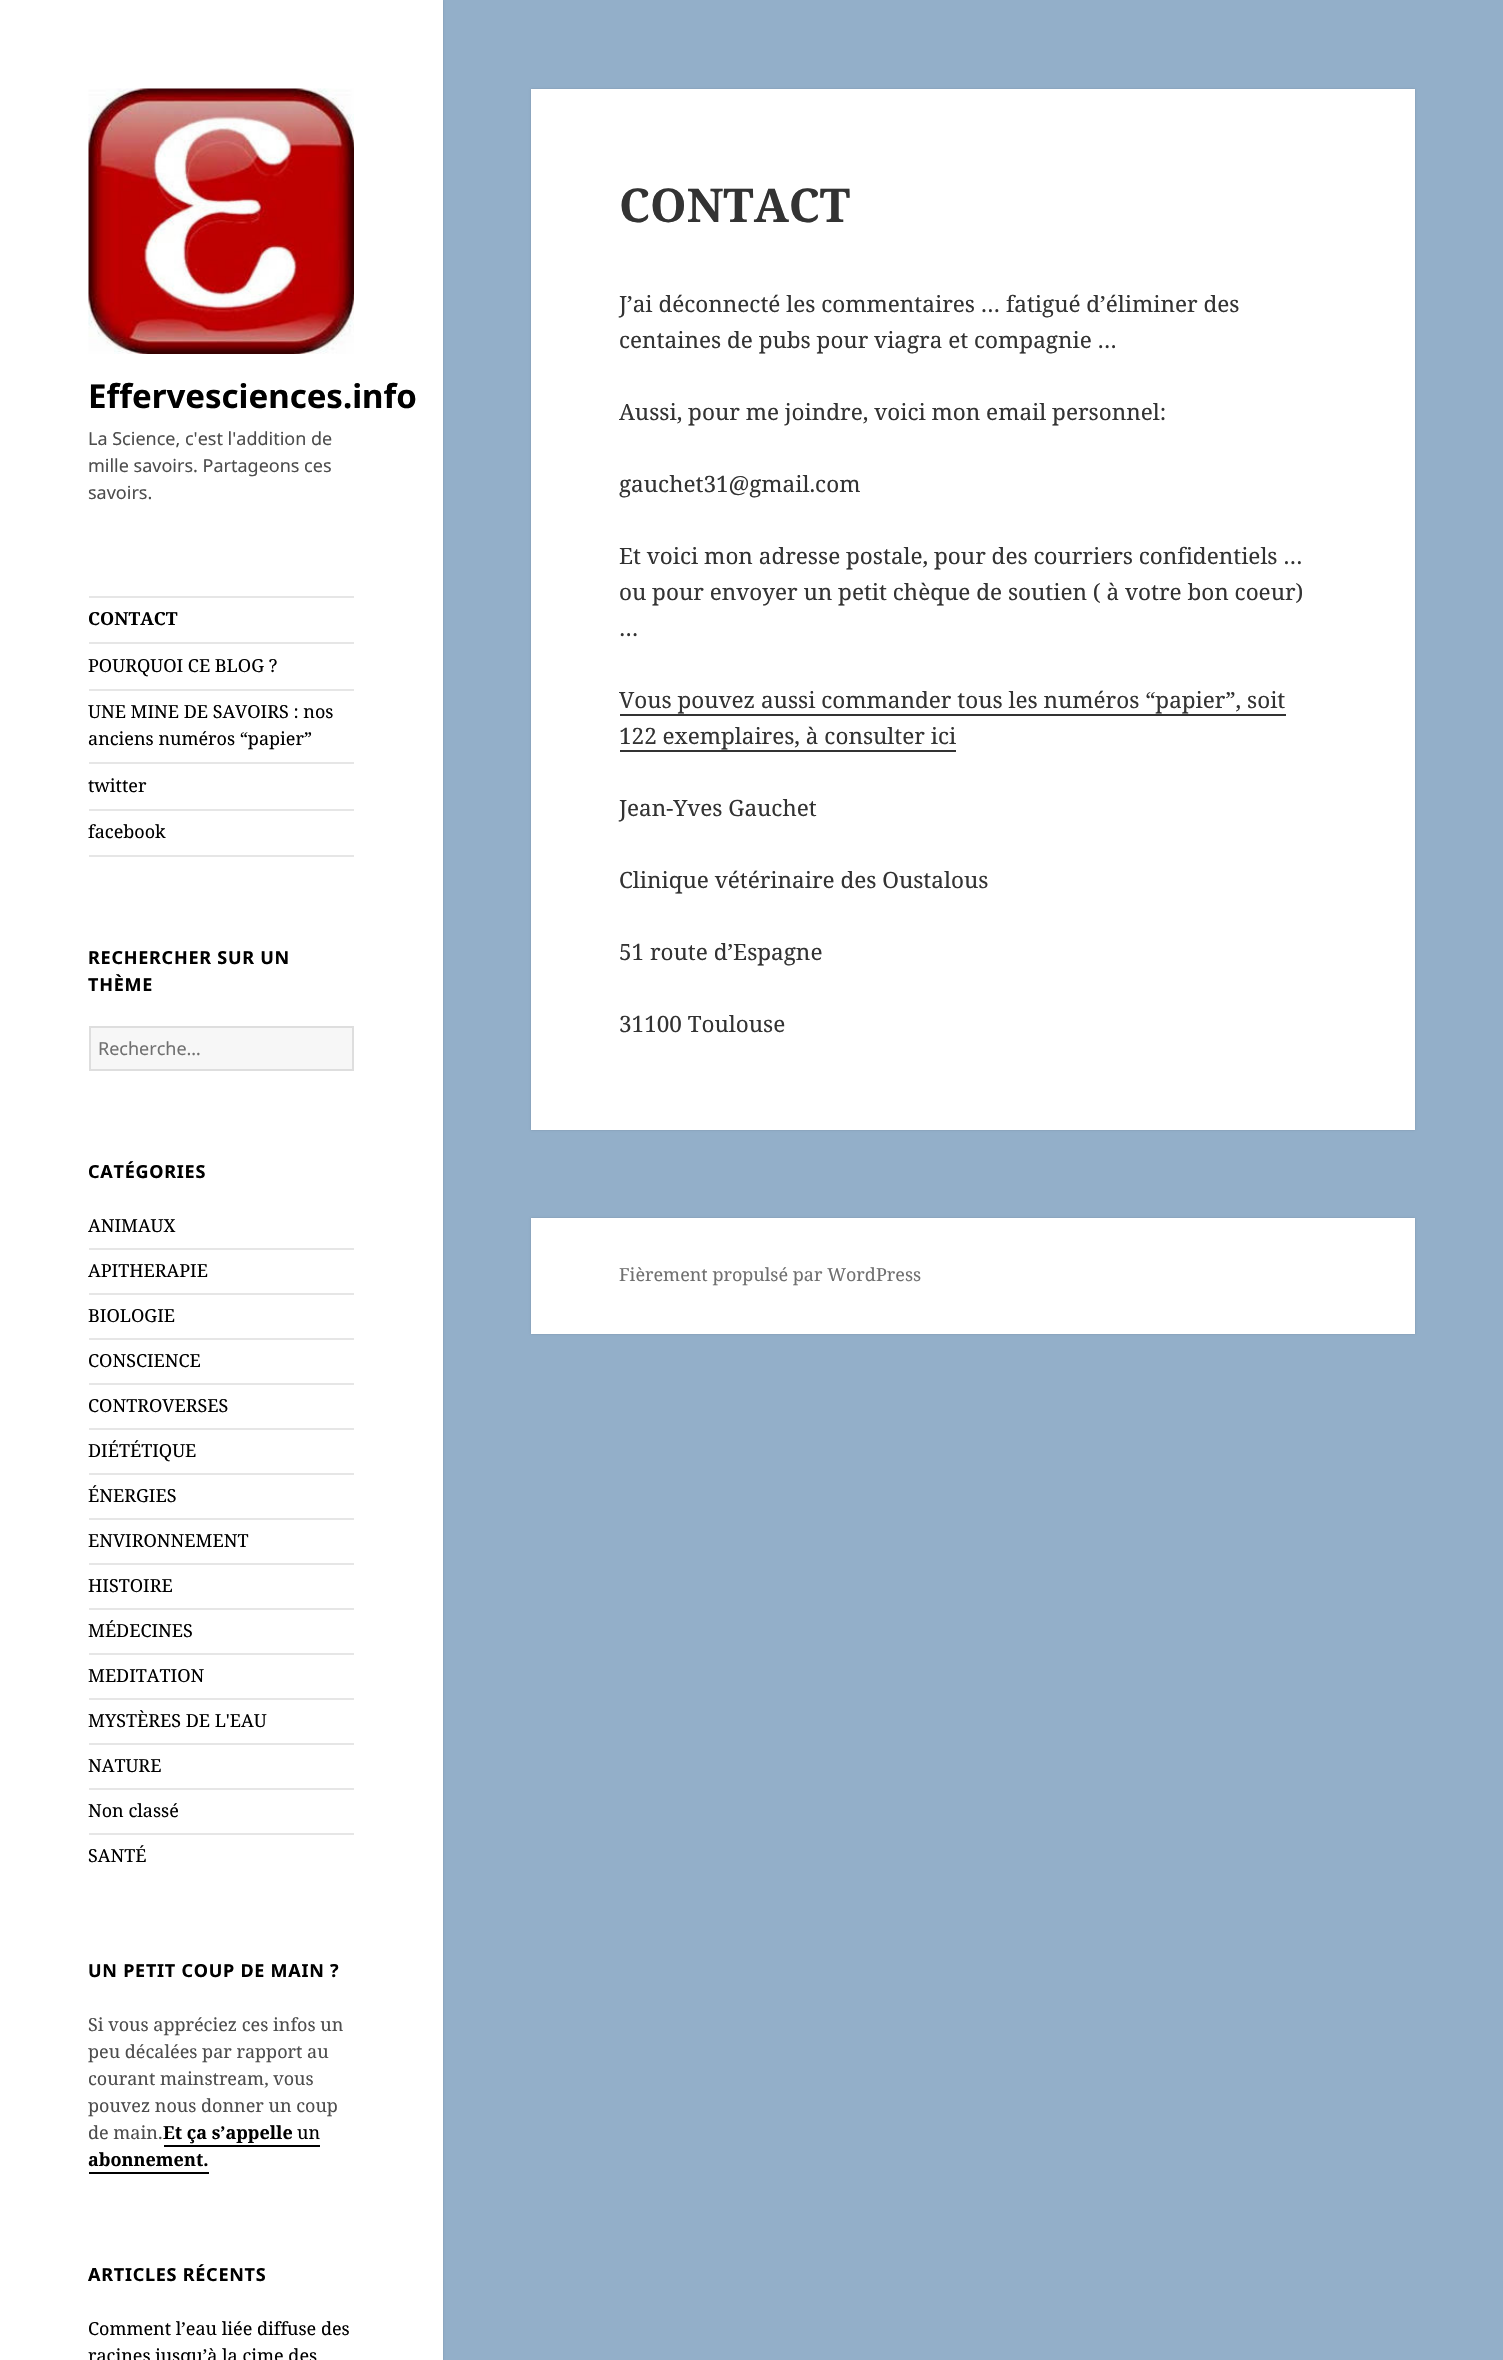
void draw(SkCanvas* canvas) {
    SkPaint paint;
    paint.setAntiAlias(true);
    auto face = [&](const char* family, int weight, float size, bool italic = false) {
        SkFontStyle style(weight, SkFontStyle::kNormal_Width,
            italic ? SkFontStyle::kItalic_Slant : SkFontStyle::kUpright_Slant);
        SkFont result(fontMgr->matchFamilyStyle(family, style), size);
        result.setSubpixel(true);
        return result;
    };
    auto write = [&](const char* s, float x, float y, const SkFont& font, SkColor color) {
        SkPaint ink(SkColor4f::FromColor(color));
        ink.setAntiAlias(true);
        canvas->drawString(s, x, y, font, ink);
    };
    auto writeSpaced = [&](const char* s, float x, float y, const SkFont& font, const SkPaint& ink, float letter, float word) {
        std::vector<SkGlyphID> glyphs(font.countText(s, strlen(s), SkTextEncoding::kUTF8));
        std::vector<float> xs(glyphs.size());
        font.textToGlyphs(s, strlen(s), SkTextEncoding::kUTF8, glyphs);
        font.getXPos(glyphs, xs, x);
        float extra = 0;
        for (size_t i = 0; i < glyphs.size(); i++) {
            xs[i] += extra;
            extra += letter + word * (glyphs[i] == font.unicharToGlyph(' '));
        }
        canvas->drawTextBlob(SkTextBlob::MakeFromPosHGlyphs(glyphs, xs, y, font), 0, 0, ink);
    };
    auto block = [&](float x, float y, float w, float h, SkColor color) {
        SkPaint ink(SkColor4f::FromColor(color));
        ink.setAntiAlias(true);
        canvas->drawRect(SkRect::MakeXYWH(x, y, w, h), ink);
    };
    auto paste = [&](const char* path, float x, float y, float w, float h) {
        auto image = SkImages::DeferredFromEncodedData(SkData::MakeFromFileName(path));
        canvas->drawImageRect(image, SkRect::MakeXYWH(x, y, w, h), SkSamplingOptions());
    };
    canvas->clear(SkColorSetRGB(147, 175, 201));
    paint.setColor(SkColorSetARGB(38, 0, 0, 0));
    paint.setMaskFilter(SkMaskFilter::MakeBlur(kNormal_SkBlurStyle, 1));
    canvas->drawRect(SkRect::MakeXYWH(0, 0, 443, 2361), paint);
    paint.setMaskFilter(nullptr);
    block(0, 0, 443, 2360, SK_ColorWHITE);
    paste("pic1.png", 88, 88, 266, 266);
    auto kFont1 = face("Noto Sans", 700, 33);
    write("Effervesciences.info", 88, 408, kFont1, SK_ColorBLACK);
    auto kFont2 = face("Noto Sans", 400, 18);
    write("La Science, c'est l'addition de", 88, 445, kFont2, SkColorSetRGB(77, 77, 77));
    write("mille savoirs. Partageons ces", 88, 472, kFont2, SkColorSetRGB(77, 77, 77));
    write("savoirs.", 88, 499, kFont2, SkColorSetRGB(77, 77, 77));
    block(89, 596, 265, 2, SkColorSetRGB(230, 230, 230));
    block(89, 855, 265, 2, SkColorSetRGB(230, 230, 230));
    auto kFont3 = face("Noto Serif", 700, 18);
    write("CONTACT", 88, 625, kFont3, SK_ColorBLACK);
    block(89, 642, 265, 2, SkColorSetRGB(230, 230, 230));
    auto kFont4 = face("Noto Serif", 400, 18);
    write("POURQUOI CE BLOG ?", 88, 672, kFont4, SK_ColorBLACK);
    block(89, 689, 265, 2, SkColorSetRGB(230, 230, 230));
    write("UNE MINE DE SAVOIRS : nos", 88, 718, kFont4, SK_ColorBLACK);
    write("anciens numéros “papier”", 88, 745, kFont4, SK_ColorBLACK);
    block(89, 762, 265, 2, SkColorSetRGB(230, 230, 230));
    write("twitter", 88, 792, kFont4, SK_ColorBLACK);
    block(89, 809, 265, 2, SkColorSetRGB(230, 230, 230));
    write("facebook", 88, 838, kFont4, SK_ColorBLACK);
    auto kFont5 = face("Noto Sans", 700, 18);
    paint.setColor(SK_ColorBLACK);
    writeSpaced("RECHERCHER SUR UN", 88, 964, kFont5, paint, 0.75f, 0);
    writeSpaced("THÈME", 88, 991, kFont5, paint, 0.75f, 0);
    paint.setColor(SkColorSetRGB(247, 247, 247));
    canvas->drawRect(SkRect::MakeXYWH(90, 1027, 263, 43), paint);
    paint.setStyle(SkPaint::kStroke_Style);
    paint.setStrokeWidth(2);
    paint.setColor(SkColorSetRGB(222, 222, 222));
    canvas->drawRect(SkRect::MakeXYWH(90, 1027, 263, 43), paint);
    write("Recherche…", 98, 1055, kFont2, SkColorSetRGB(112, 112, 112));
    paint.setStyle(SkPaint::kFill_Style);
    paint.setColor(SK_ColorBLACK);
    writeSpaced("CATÉGORIES", 88, 1178, kFont5, paint, 0.75f, 0);
    write("ANIMAUX", 88, 1232, kFont4, SK_ColorBLACK);
    block(89, 1248, 265, 2, SkColorSetRGB(230, 230, 230));
    write("APITHERAPIE", 88, 1277, kFont4, SK_ColorBLACK);
    block(89, 1293, 265, 2, SkColorSetRGB(230, 230, 230));
    write("BIOLOGIE", 88, 1322, kFont4, SK_ColorBLACK);
    block(89, 1338, 265, 2, SkColorSetRGB(230, 230, 230));
    write("CONSCIENCE", 88, 1367, kFont4, SK_ColorBLACK);
    block(89, 1383, 265, 2, SkColorSetRGB(230, 230, 230));
    write("CONTROVERSES", 88, 1412, kFont4, SK_ColorBLACK);
    block(89, 1428, 265, 2, SkColorSetRGB(230, 230, 230));
    write("DIÉTÉTIQUE", 88, 1457, kFont4, SK_ColorBLACK);
    block(89, 1473, 265, 2, SkColorSetRGB(230, 230, 230));
    write("ÉNERGIES", 88, 1502, kFont4, SK_ColorBLACK);
    block(89, 1518, 265, 2, SkColorSetRGB(230, 230, 230));
    write("ENVIRONNEMENT", 88, 1547, kFont4, SK_ColorBLACK);
    block(89, 1563, 265, 2, SkColorSetRGB(230, 230, 230));
    write("HISTOIRE", 88, 1592, kFont4, SK_ColorBLACK);
    block(89, 1608, 265, 2, SkColorSetRGB(230, 230, 230));
    write("MÉDECINES", 88, 1637, kFont4, SK_ColorBLACK);
    block(89, 1653, 265, 2, SkColorSetRGB(230, 230, 230));
    write("MEDITATION", 88, 1682, kFont4, SK_ColorBLACK);
    block(89, 1698, 265, 2, SkColorSetRGB(230, 230, 230));
    write("MYSTÈRES DE L'EAU", 88, 1727, kFont4, SK_ColorBLACK);
    block(89, 1743, 265, 2, SkColorSetRGB(230, 230, 230));
    write("NATURE", 88, 1772, kFont4, SK_ColorBLACK);
    block(89, 1788, 265, 2, SkColorSetRGB(230, 230, 230));
    write("Non classé", 88, 1817, kFont4, SK_ColorBLACK);
    block(89, 1833, 265, 2, SkColorSetRGB(230, 230, 230));
    write("SANTÉ", 88, 1862, kFont4, SK_ColorBLACK);
    writeSpaced("UN PETIT COUP DE MAIN ?", 88, 1977, kFont5, paint, 0.75f, 0);
    write("Si vous appréciez ces infos un", 88, 2031, kFont4, SkColorSetRGB(77, 77, 77));
    write("peu décalées par rapport au", 88, 2058, kFont4, SkColorSetRGB(77, 77, 77));
    write("courant mainstream, vous", 88, 2085, kFont4, SkColorSetRGB(77, 77, 77));
    write("pouvez nous donner un coup", 88, 2112, kFont4, SkColorSetRGB(77, 77, 77));
    write("de main.", 88, 2139, kFont4, SkColorSetRGB(77, 77, 77));
    write("Et ça s’appelle", 163, 2139, kFont3, SK_ColorBLACK);
    block(164, 2145, 156, 2, SK_ColorBLACK);
    write("un", 297, 2139, kFont4, SK_ColorBLACK);
    write("abonnement.", 88, 2166, kFont3, SK_ColorBLACK);
    block(89, 2172, 120, 2, SK_ColorBLACK);
    writeSpaced("ARTICLES RÉCENTS", 88, 2281, kFont5, paint, 0.75f, 0);
    write("Comment l’eau liée diffuse des", 88, 2335, kFont4, SK_ColorBLACK);
    write("racines jusqu’à la cime des", 88, 2362, kFont4, SK_ColorBLACK);
    paint.setColor(SkColorSetARGB(38, 0, 0, 0));
    paint.setMaskFilter(SkMaskFilter::MakeBlur(kNormal_SkBlurStyle, 1));
    canvas->drawRect(SkRect::MakeXYWH(531, 89, 884, 1041), paint);
    paint.setMaskFilter(nullptr);
    block(531, 89, 884, 1041, SK_ColorWHITE);
    auto kFont6 = face("Noto Serif", 700, 46.5f);
    write("CONTACT", 619, 222, kFont6, SkColorSetRGB(51, 51, 51));
    auto kFont7 = face("Noto Serif", 400, 22.5f);
    write("J’ai déconnecté les commentaires … fatigué d’éliminer des", 619, 312, kFont7, SkColorSetRGB(51, 51, 51));
    write("centaines de pubs pour viagra et compagnie …", 619, 348, kFont7, SkColorSetRGB(51, 51, 51));
    write("Aussi, pour me joindre, voici mon email personnel:", 619, 420, kFont7, SkColorSetRGB(51, 51, 51));
    write("gauchet31@gmail.com", 619, 492, kFont7, SkColorSetRGB(51, 51, 51));
    write("Et voici mon adresse postale, pour des courriers confidentiels …", 619, 564, kFont7, SkColorSetRGB(51, 51, 51));
    write("ou pour envoyer un petit chèque de soutien ( à votre bon coeur)", 619, 600, kFont7, SkColorSetRGB(51, 51, 51));
    write("…", 619, 636, kFont7, SkColorSetRGB(51, 51, 51));
    write("Vous pouvez aussi commander tous les numéros “papier”, soit", 619, 708, kFont7, SkColorSetRGB(51, 51, 51));
    block(620, 714, 666, 2, SkColorSetRGB(51, 51, 51));
    write("122 exemplaires, à consulter ici", 619, 744, kFont7, SkColorSetRGB(51, 51, 51));
    block(620, 750, 336, 2, SkColorSetRGB(51, 51, 51));
    write("Jean-Yves Gauchet", 619, 816, kFont7, SkColorSetRGB(51, 51, 51));
    write("Clinique vétérinaire des Oustalous", 619, 888, kFont7, SkColorSetRGB(51, 51, 51));
    write("51 route d’Espagne", 619, 960, kFont7, SkColorSetRGB(51, 51, 51));
    write("31100 Toulouse", 619, 1032, kFont7, SkColorSetRGB(51, 51, 51));
    paint.setMaskFilter(SkMaskFilter::MakeBlur(kNormal_SkBlurStyle, 1));
    canvas->drawRect(SkRect::MakeXYWH(531, 1218, 884, 116), paint);
    paint.setMaskFilter(nullptr);
    block(531, 1218, 884, 116, SK_ColorWHITE);
    write("Fièrement propulsé par WordPress", 619, 1281, kFont4, SkColorSetRGB(112, 112, 112));
}
